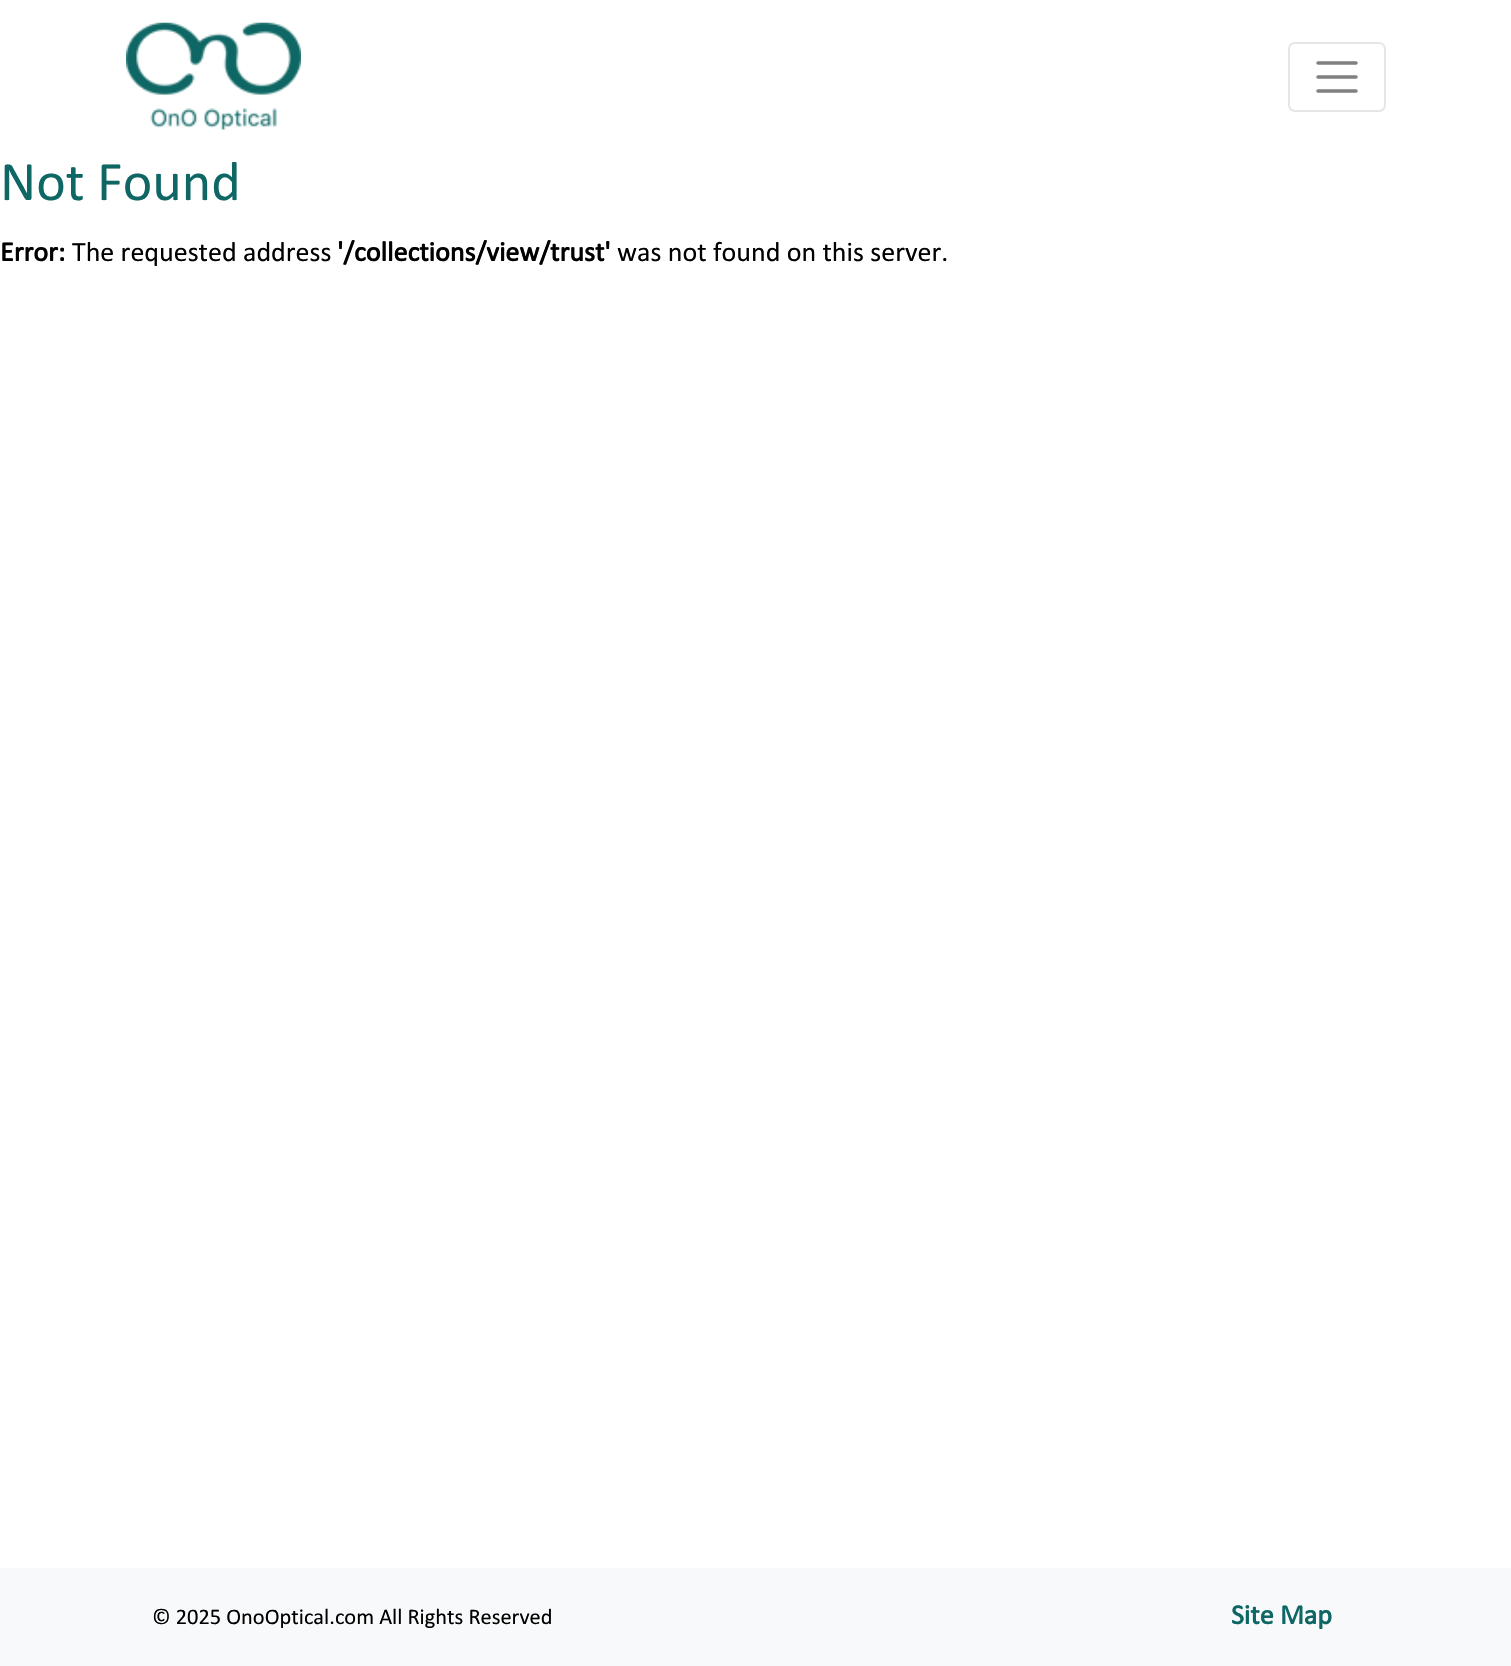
void draw(SkCanvas* canvas) {
    SkPaint paint;
    paint.setAntiAlias(true);
    auto face = [&](const char* family, int weight, float size, bool italic = false) {
        SkFontStyle style(weight, SkFontStyle::kNormal_Width,
            italic ? SkFontStyle::kItalic_Slant : SkFontStyle::kUpright_Slant);
        SkFont result(fontMgr->matchFamilyStyle(family, style), size);
        result.setSubpixel(true);
        return result;
    };
    auto write = [&](const char* s, float x, float y, const SkFont& font, SkColor color) {
        SkPaint ink(SkColor4f::FromColor(color));
        ink.setAntiAlias(true);
        canvas->drawString(s, x, y, font, ink);
    };
    auto block = [&](float x, float y, float w, float h, SkColor color) {
        SkPaint ink(SkColor4f::FromColor(color));
        ink.setAntiAlias(true);
        canvas->drawRect(SkRect::MakeXYWH(x, y, w, h), ink);
    };
    auto paste = [&](const char* path, float x, float y, float w, float h) {
        auto image = SkImages::DeferredFromEncodedData(SkData::MakeFromFileName(path));
        canvas->drawImageRect(image, SkRect::MakeXYWH(x, y, w, h), SkSamplingOptions());
    };
    canvas->clear(SK_ColorWHITE);
    paste("pic1.png", 126, 22, 175, 108);
    paint.setStyle(SkPaint::kStroke_Style);
    paint.setStrokeWidth(2);
    paint.setColor(SkColorSetRGB(230, 230, 230));
    canvas->drawRoundRect(SkRect::MakeXYWH(1289, 43, 96, 68), 6, 6, paint);
    paint.setStrokeWidth(3.5f);
    paint.setStrokeCap(SkPaint::kRound_Cap);
    paint.setColor(SkColorSetRGB(128, 128, 128));
    canvas->drawPath(SkPathBuilder().moveTo(1318, 63).lineTo(1356, 63).moveTo(1318, 77).lineTo(1356, 77).moveTo(1318, 91).lineTo(1356, 91).detach(), paint);
    auto kFont1 = face("Calibri", 400, 56);
    write("Not Found", 0, 200, kFont1, SkColorSetRGB(14, 103, 100));
    auto kFont2 = face("Calibri", 700, 28);
    write("Error:", 0, 261, kFont2, SK_ColorBLACK);
    auto kFont3 = face("Calibri", 400, 28);
    write("The requested address", 72, 261, kFont3, SK_ColorBLACK);
    write("'/collections/view/trust'", 337, 261, kFont2, SK_ColorBLACK);
    write("was not found on this server.", 617, 261, kFont3, SK_ColorBLACK);
    block(0, 1568, 1511, 98, SkColorSetRGB(248, 249, 250));
    auto kFont4 = face("Calibri", 400, 22.4f);
    write("© 2025 OnoOptical.com All Rights Reserved", 152, 1624, kFont4, SK_ColorBLACK);
    write("Site Map", 1231, 1624, kFont2, SkColorSetRGB(14, 103, 100));
}
